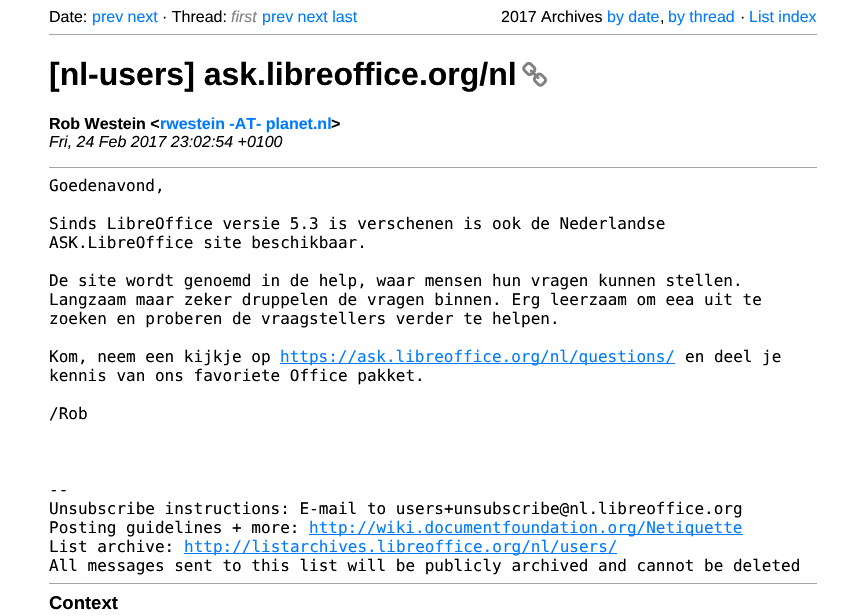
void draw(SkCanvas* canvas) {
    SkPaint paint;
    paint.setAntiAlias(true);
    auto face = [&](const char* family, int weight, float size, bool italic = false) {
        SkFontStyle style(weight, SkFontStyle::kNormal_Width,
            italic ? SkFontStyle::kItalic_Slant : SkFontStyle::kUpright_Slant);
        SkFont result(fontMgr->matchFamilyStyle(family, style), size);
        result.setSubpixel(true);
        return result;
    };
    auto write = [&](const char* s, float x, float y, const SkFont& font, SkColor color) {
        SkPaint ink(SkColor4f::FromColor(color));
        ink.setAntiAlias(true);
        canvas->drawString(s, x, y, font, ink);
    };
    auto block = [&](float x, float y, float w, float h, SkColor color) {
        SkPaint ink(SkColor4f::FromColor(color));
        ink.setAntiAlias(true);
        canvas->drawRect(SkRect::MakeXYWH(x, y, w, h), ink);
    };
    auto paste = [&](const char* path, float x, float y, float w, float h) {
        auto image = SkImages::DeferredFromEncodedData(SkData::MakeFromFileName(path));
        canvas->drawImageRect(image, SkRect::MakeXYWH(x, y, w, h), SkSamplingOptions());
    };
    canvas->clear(SK_ColorWHITE);
    auto kFont1 = face("Liberation Sans", 400, 16);
    write("Date:", 49, 22, kFont1, SK_ColorBLACK);
    write("prev next", 92, 22, kFont1, SkColorSetRGB(0, 123, 255));
    write("· Thread:", 162, 22, kFont1, SK_ColorBLACK);
    auto kFont2 = face("Liberation Sans", 400, 16, true);
    write("first", 231, 22, kFont2, SkColorSetRGB(128, 128, 128));
    write("prev next last", 262, 22, kFont1, SkColorSetRGB(0, 123, 255));
    write("2017 Archives", 501, 22, kFont1, SK_ColorBLACK);
    write("by date", 607, 22, kFont1, SkColorSetRGB(0, 123, 255));
    write("by thread", 668, 22, kFont1, SkColorSetRGB(0, 123, 255));
    write("·", 740, 22, kFont1, SK_ColorBLACK);
    write("List index", 749, 22, kFont1, SkColorSetRGB(0, 123, 255));
    write(",", 660, 22, kFont1, SK_ColorBLACK);
    block(49, 34, 768, 1, SkColorSetRGB(166, 166, 166));
    auto kFont3 = face("Liberation Sans", 700, 32);
    write("[nl-users] ask.libreoffice.org/nl", 49, 85, kFont3, SK_ColorBLACK);
    paste("pic1.png", 522, 61, 25, 26);
    auto kFont4 = face("Liberation Sans", 700, 16);
    write("Rob Westein <", 49, 129, kFont4, SK_ColorBLACK);
    write("rwestein -AT- planet.nl", 160, 129, kFont4, SkColorSetRGB(0, 123, 255));
    write(">", 331, 129, kFont4, SK_ColorBLACK);
    write("Fri, 24 Feb 2017 23:02:54 +0100", 49, 147, kFont2, SK_ColorBLACK);
    block(49, 167, 768, 1, SkColorSetRGB(166, 166, 166));
    auto kFont5 = face("DejaVu Sans Mono", 400, 16);
    write("Goedenavond,", 49, 191, kFont5, SK_ColorBLACK);
    write("Sinds LibreOffice versie 5.3 is verschenen is ook de Nederlandse", 49, 229, kFont5, SK_ColorBLACK);
    write("ASK.LibreOffice site beschikbaar.", 49, 248, kFont5, SK_ColorBLACK);
    write("De site wordt genoemd in de help, waar mensen hun vragen kunnen stellen.", 49, 286, kFont5, SK_ColorBLACK);
    write("Langzaam maar zeker druppelen de vragen binnen. Erg leerzaam om eea uit te", 49, 305, kFont5, SK_ColorBLACK);
    write("zoeken en proberen de vraagstellers verder te helpen.", 49, 324, kFont5, SK_ColorBLACK);
    write("Kom, neem een kijkje op", 49, 362, kFont5, SK_ColorBLACK);
    block(280, 363, 395, 1, SkColorSetRGB(0, 123, 255));
    write("https://ask.libreoffice.org/nl/questions/", 280, 362, kFont5, SkColorSetRGB(0, 123, 255));
    write("en deel je", 685, 362, kFont5, SK_ColorBLACK);
    write("kennis van ons favoriete Office pakket.", 49, 381, kFont5, SK_ColorBLACK);
    write("/Rob", 49, 419, kFont5, SK_ColorBLACK);
    write("--", 49, 495, kFont5, SK_ColorBLACK);
    write("Unsubscribe instructions: E-mail to users+unsubscribe@nl.libreoffice.org", 49, 514, kFont5, SK_ColorBLACK);
    write("Posting guidelines + more:", 49, 533, kFont5, SK_ColorBLACK);
    block(309, 534, 434, 1, SkColorSetRGB(0, 123, 255));
    write("http://wiki.documentfoundation.org/Netiquette", 309, 533, kFont5, SkColorSetRGB(0, 123, 255));
    write("List archive:", 49, 552, kFont5, SK_ColorBLACK);
    block(184, 553, 433, 1, SkColorSetRGB(0, 123, 255));
    write("http://listarchives.libreoffice.org/nl/users/", 184, 552, kFont5, SkColorSetRGB(0, 123, 255));
    write("All messages sent to this list will be publicly archived and cannot be deleted", 49, 571, kFont5, SK_ColorBLACK);
    block(49, 583, 768, 1, SkColorSetRGB(166, 166, 166));
    auto kFont6 = face("Liberation Sans", 700, 18.5f);
    write("Context", 49, 609, kFont6, SK_ColorBLACK);
}
